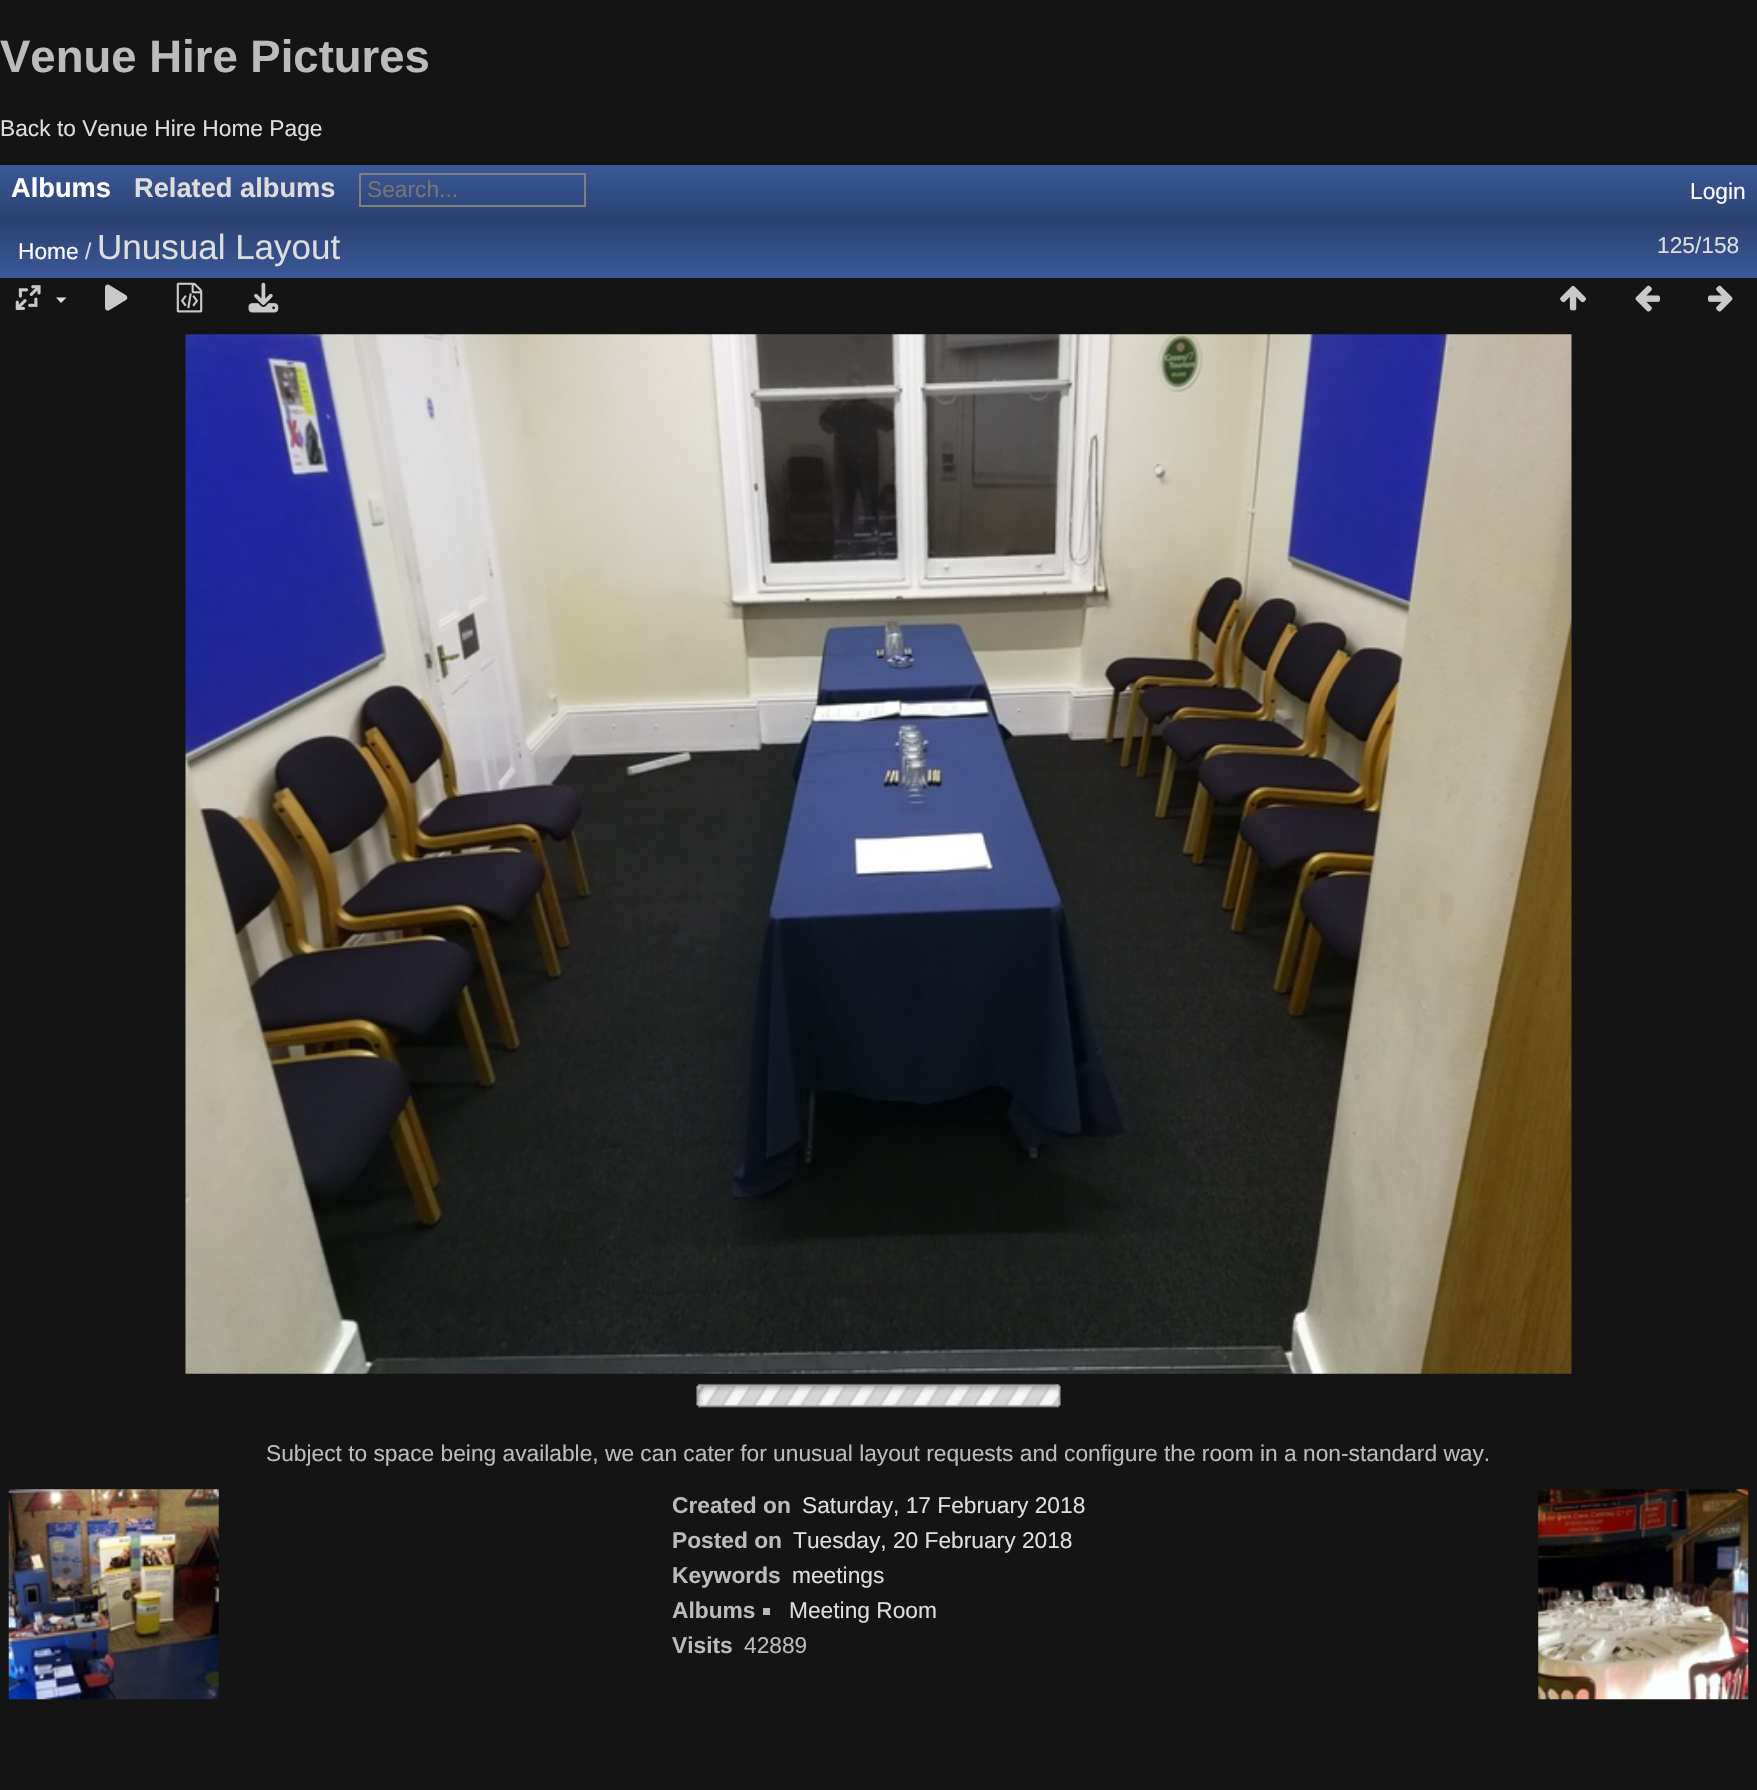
void draw(SkCanvas* canvas) {
    SkPaint paint;
    paint.setAntiAlias(true);
    auto face = [&](const char* family, int weight, float size, bool italic = false) {
        SkFontStyle style(weight, SkFontStyle::kNormal_Width,
            italic ? SkFontStyle::kItalic_Slant : SkFontStyle::kUpright_Slant);
        SkFont result(fontMgr->matchFamilyStyle(family, style), size);
        result.setSubpixel(true);
        return result;
    };
    auto write = [&](const char* s, float x, float y, const SkFont& font, SkColor color) {
        SkPaint ink(SkColor4f::FromColor(color));
        ink.setAntiAlias(true);
        canvas->drawString(s, x, y, font, ink);
    };
    auto block = [&](float x, float y, float w, float h, SkColor color) {
        SkPaint ink(SkColor4f::FromColor(color));
        ink.setAntiAlias(true);
        canvas->drawRect(SkRect::MakeXYWH(x, y, w, h), ink);
    };
    auto paste = [&](const char* path, float x, float y, float w, float h) {
        auto image = SkImages::DeferredFromEncodedData(SkData::MakeFromFileName(path));
        canvas->drawImageRect(image, SkRect::MakeXYWH(x, y, w, h), SkSamplingOptions());
    };
    canvas->clear(SkColorSetRGB(20, 20, 20));
    auto kFont1 = face("Liberation Sans", 700, 45.5f);
    write("Venue Hire Pictures", 0, 72, kFont1, SkColorSetRGB(187, 187, 187));
    auto kFont2 = face("Liberation Sans", 400, 22.75f);
    write("Back to Venue Hire Home Page", 0, 136, kFont2, SkColorSetRGB(221, 221, 221));
    {
        const SkColor colors[] = {SkColorSetRGB(59, 89, 152), SkColorSetRGB(43, 65, 112)};
        const float stops[] = {0, 1};
        const SkPoint ends[] = {{879, 164}, {879, 221}};
        paint.setShader(SkGradientShader::MakeLinear(ends, colors, stops, 2, SkTileMode::kClamp));
        paint.setAlpha(255);
    }
    canvas->drawRect(SkRect::MakeXYWH(0, 165, 1757, 56), paint);
    auto kFont3 = face("Liberation Sans", 700, 27.25f);
    write("Albums", 11, 197, kFont3, SK_ColorWHITE);
    write("Related albums", 134, 197, kFont3, SkColorSetRGB(221, 221, 221));
    paint.setStyle(SkPaint::kStroke_Style);
    paint.setStrokeWidth(2);
    paint.setShader(nullptr);
    paint.setColor(SkColorSetRGB(128, 128, 128));
    canvas->drawRect(SkRect::MakeXYWH(360, 174, 225, 32), paint);
    write("Search...", 367, 197, kFont2, SkColorSetRGB(117, 117, 117));
    write("Login", 1690, 199, kFont2, SK_ColorWHITE);
    paint.setStyle(SkPaint::kFill_Style);
    {
        const SkColor colors[] = {SkColorSetRGB(43, 65, 112), SkColorSetRGB(59, 89, 152)};
        const float stops[] = {0, 1};
        const SkPoint ends[] = {{879, 220}, {879, 278}};
        paint.setShader(SkGradientShader::MakeLinear(ends, colors, stops, 2, SkTileMode::kClamp));
        paint.setAlpha(255);
    }
    canvas->drawRect(SkRect::MakeXYWH(0, 221, 1757, 57), paint);
    write("Home", 18, 259, kFont2, SK_ColorWHITE);
    write("/", 85, 259, kFont2, SkColorSetRGB(221, 221, 221));
    auto kFont4 = face("Liberation Sans", 400, 35);
    write("Unusual Layout", 97, 259, kFont4, SkColorSetRGB(221, 221, 221));
    write("125/158", 1657, 253, kFont2, SkColorSetRGB(221, 221, 221));
    paste("pic1.png", 15, 285, 26, 25);
    paint.setShader(nullptr);
    paint.setColor(SkColorSetRGB(221, 221, 221));
    canvas->drawPath(SkPathBuilder().moveTo(56, 297.5f).lineTo(66.5f, 297.5f).lineTo(61, 303).close().detach(), paint);
    paste("pic2.png", 105, 284, 23, 27);
    paste("pic3.png", 176, 282, 27, 31);
    paste("pic4.png", 248, 282, 31, 31);
    paste("pic5.png", 1560, 285, 26, 26);
    paste("pic6.png", 1635, 285, 25, 27);
    paste("pic7.png", 1708, 285, 25, 27);
    paste("pic8.png", 185, 334, 1387, 1040);
    paste("pic9.png", 696, 1383, 365, 25);
    write("Subject to space being available, we can cater for unusual layout requests and configure the room in a non-standard way.", 266, 1461, kFont2, SkColorSetRGB(187, 187, 187));
    paste("pic10.png", 8, 1489, 211, 211);
    paste("pic11.png", 1538, 1489, 211, 211);
    auto kFont5 = face("Liberation Sans", 700, 22.75f);
    write("Created on", 672, 1513, kFont5, SkColorSetRGB(187, 187, 187));
    write("Saturday, 17 February 2018", 802, 1513, kFont2, SkColorSetRGB(221, 221, 221));
    write("Posted on", 672, 1548, kFont5, SkColorSetRGB(187, 187, 187));
    write("Tuesday, 20 February 2018", 793, 1548, kFont2, SkColorSetRGB(221, 221, 221));
    write("Keywords", 672, 1583, kFont5, SkColorSetRGB(187, 187, 187));
    write("meetings", 792, 1583, kFont2, SkColorSetRGB(221, 221, 221));
    write("Albums", 672, 1618, kFont5, SkColorSetRGB(187, 187, 187));
    block(763, 1608, 7, 7, SkColorSetRGB(187, 187, 187));
    write("Meeting Room", 789, 1618, kFont2, SkColorSetRGB(221, 221, 221));
    write("Visits", 672, 1653, kFont5, SkColorSetRGB(187, 187, 187));
    write("42889", 744, 1653, kFont2, SkColorSetRGB(187, 187, 187));
}
